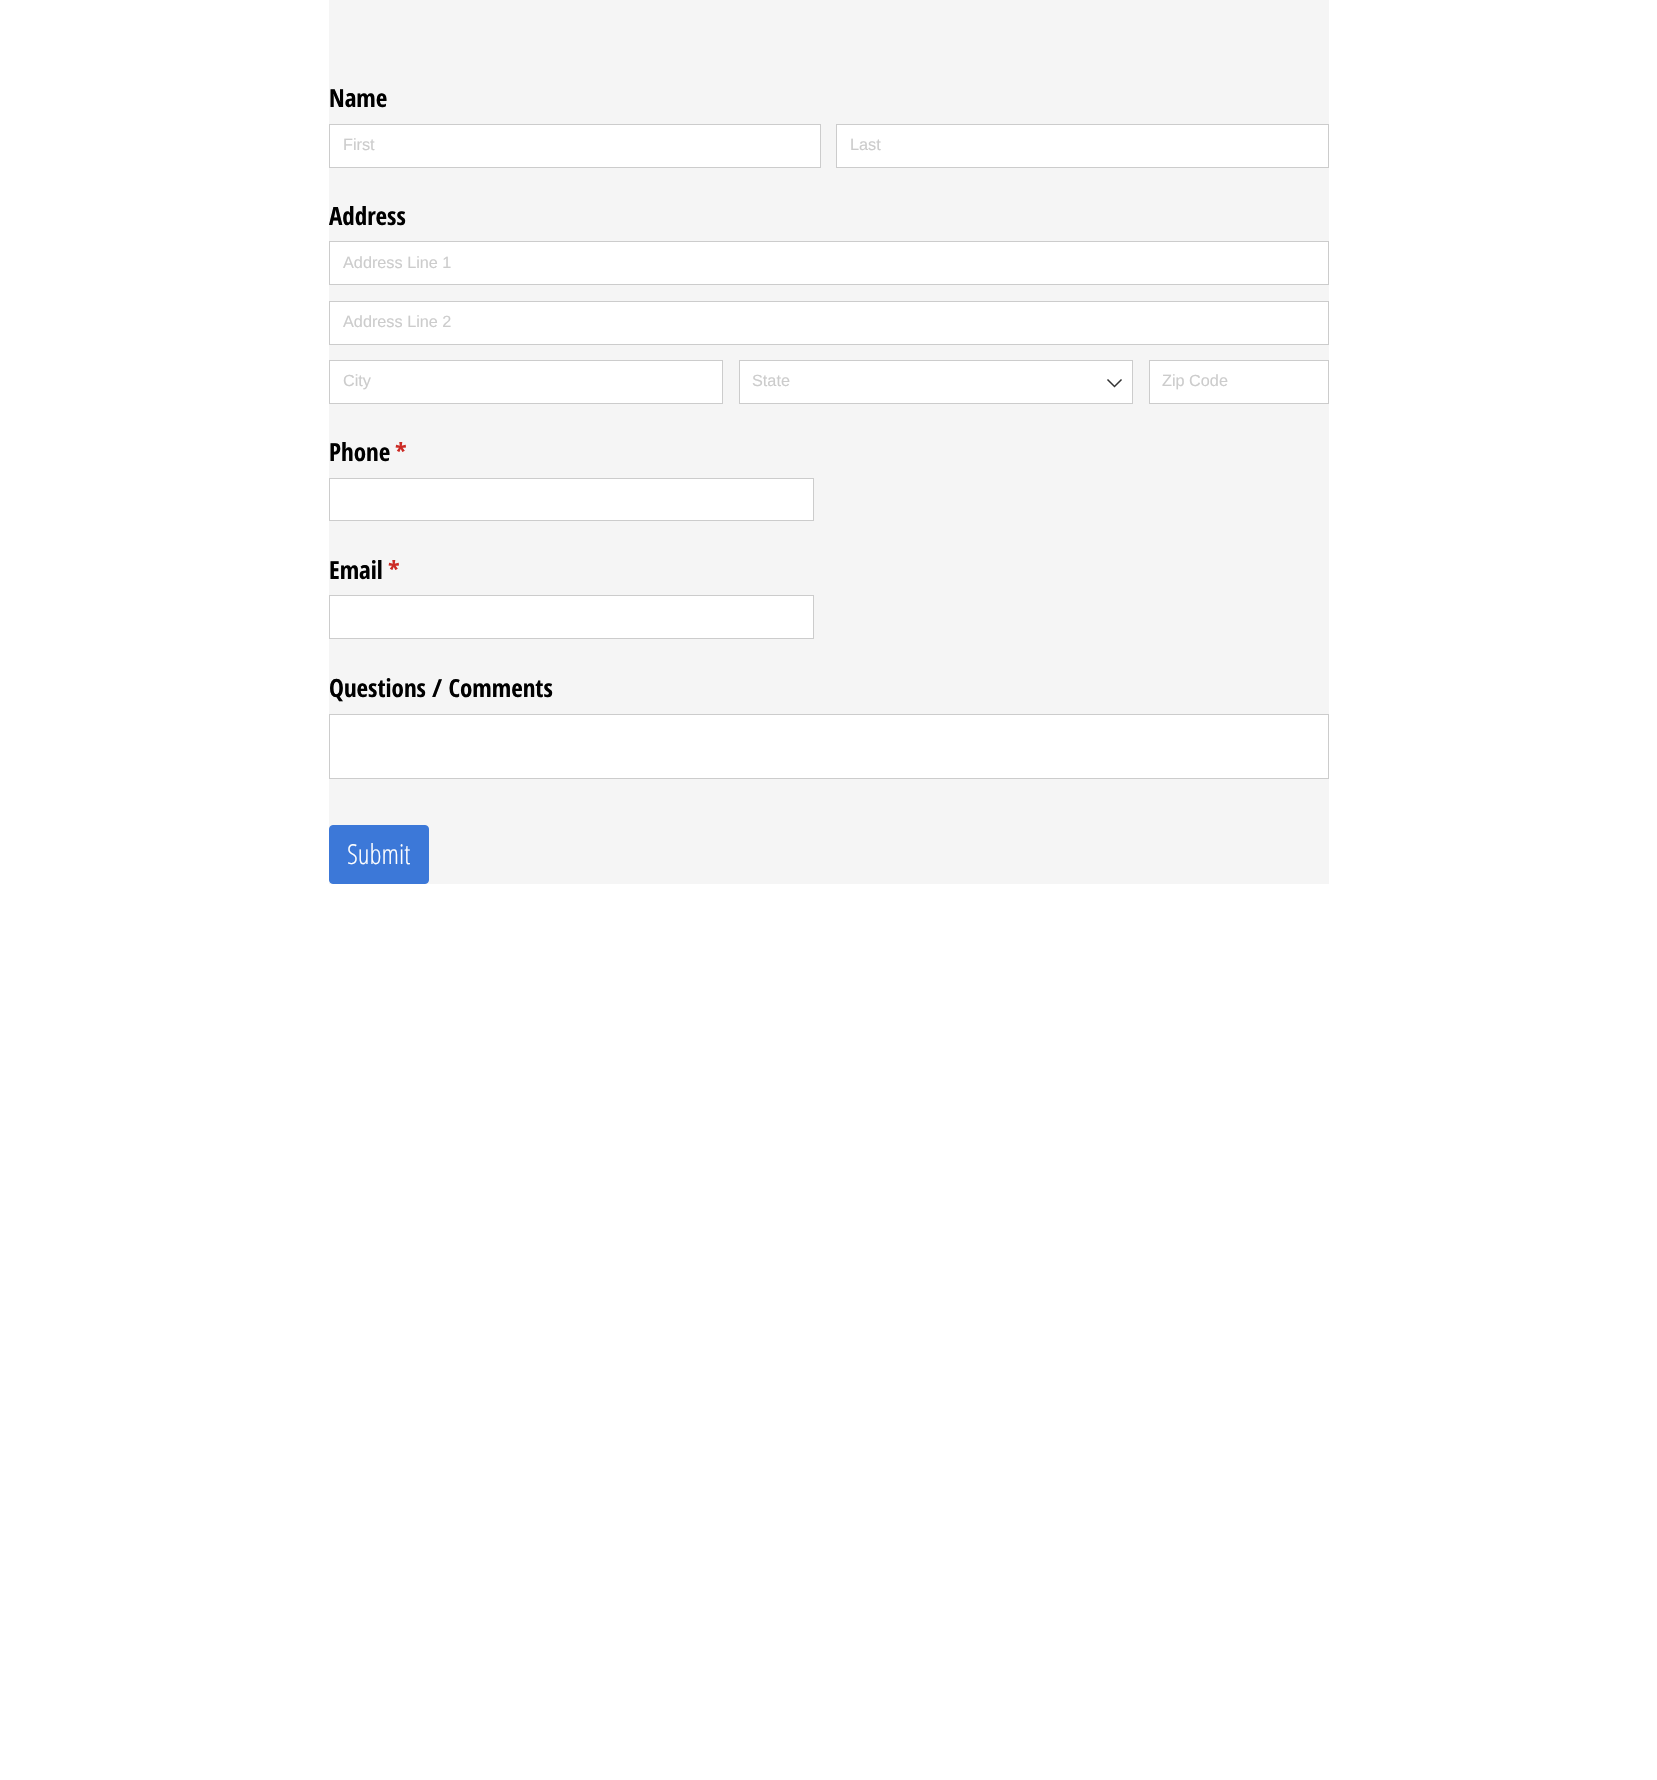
void draw(SkCanvas* canvas) {
    SkPaint paint;
    paint.setAntiAlias(true);
    auto face = [&](const char* family, int weight, float size, bool italic = false) {
        SkFontStyle style(weight, SkFontStyle::kNormal_Width,
            italic ? SkFontStyle::kItalic_Slant : SkFontStyle::kUpright_Slant);
        SkFont result(fontMgr->matchFamilyStyle(family, style), size);
        result.setSubpixel(true);
        return result;
    };
    auto write = [&](const char* s, float x, float y, const SkFont& font, SkColor color) {
        SkPaint ink(SkColor4f::FromColor(color));
        ink.setAntiAlias(true);
        canvas->drawString(s, x, y, font, ink);
    };
    auto block = [&](float x, float y, float w, float h, SkColor color) {
        SkPaint ink(SkColor4f::FromColor(color));
        ink.setAntiAlias(true);
        canvas->drawRect(SkRect::MakeXYWH(x, y, w, h), ink);
    };
    canvas->clear(SK_ColorWHITE);
    block(329, 0, 1000, 884, SkColorSetRGB(245, 245, 245));
    auto kFont1 = face("Open Sans Condensed", 700, 25);
    write("Name", 329, 107, kFont1, SK_ColorBLACK);
    paint.setColor(SK_ColorWHITE);
    canvas->drawRect(SkRect::MakeXYWH(329.5f, 124.5f, 491, 43), paint);
    paint.setStyle(SkPaint::kStroke_Style);
    paint.setStrokeWidth(1);
    paint.setColor(SkColorSetRGB(204, 204, 204));
    canvas->drawRect(SkRect::MakeXYWH(329.5f, 124.5f, 491, 43), paint);
    auto kFont2 = face("Liberation Sans", 400, 16.25f);
    write("First", 343, 150, kFont2, SkColorSetRGB(204, 204, 204));
    paint.setStyle(SkPaint::kFill_Style);
    paint.setColor(SK_ColorWHITE);
    canvas->drawRect(SkRect::MakeXYWH(836.5f, 124.5f, 492, 43), paint);
    paint.setStyle(SkPaint::kStroke_Style);
    paint.setColor(SkColorSetRGB(204, 204, 204));
    canvas->drawRect(SkRect::MakeXYWH(836.5f, 124.5f, 492, 43), paint);
    write("Last", 850, 150, kFont2, SkColorSetRGB(204, 204, 204));
    write("Address", 329, 225, kFont1, SK_ColorBLACK);
    paint.setStyle(SkPaint::kFill_Style);
    paint.setColor(SK_ColorWHITE);
    canvas->drawRect(SkRect::MakeXYWH(329.5f, 241.5f, 999, 43), paint);
    paint.setStyle(SkPaint::kStroke_Style);
    paint.setColor(SkColorSetRGB(204, 204, 204));
    canvas->drawRect(SkRect::MakeXYWH(329.5f, 241.5f, 999, 43), paint);
    write("Address Line 1", 343, 268, kFont2, SkColorSetRGB(204, 204, 204));
    paint.setStyle(SkPaint::kFill_Style);
    paint.setColor(SK_ColorWHITE);
    canvas->drawRect(SkRect::MakeXYWH(329.5f, 301.5f, 999, 43), paint);
    paint.setStyle(SkPaint::kStroke_Style);
    paint.setColor(SkColorSetRGB(204, 204, 204));
    canvas->drawRect(SkRect::MakeXYWH(329.5f, 301.5f, 999, 43), paint);
    write("Address Line 2", 343, 327, kFont2, SkColorSetRGB(204, 204, 204));
    paint.setStyle(SkPaint::kFill_Style);
    paint.setColor(SK_ColorWHITE);
    canvas->drawRect(SkRect::MakeXYWH(329.5f, 360.5f, 393, 43), paint);
    paint.setStyle(SkPaint::kStroke_Style);
    paint.setColor(SkColorSetRGB(204, 204, 204));
    canvas->drawRect(SkRect::MakeXYWH(329.5f, 360.5f, 393, 43), paint);
    write("City", 343, 386, kFont2, SkColorSetRGB(204, 204, 204));
    paint.setStyle(SkPaint::kFill_Style);
    paint.setColor(SK_ColorWHITE);
    canvas->drawRect(SkRect::MakeXYWH(739.5f, 360.5f, 393, 43), paint);
    paint.setStyle(SkPaint::kStroke_Style);
    paint.setColor(SkColorSetRGB(204, 204, 204));
    canvas->drawRect(SkRect::MakeXYWH(739.5f, 360.5f, 393, 43), paint);
    write("State", 752, 386, kFont2, SkColorSetRGB(204, 204, 204));
    paint.setStrokeWidth(1.5f);
    paint.setStrokeCap(SkPaint::kSquare_Cap);
    paint.setColor(SkColorSetRGB(51, 51, 51));
    canvas->drawPath(SkPathBuilder().moveTo(1108, 380).lineTo(1114.5f, 386.5f).lineTo(1121, 380).detach(), paint);
    paint.setStyle(SkPaint::kFill_Style);
    paint.setColor(SK_ColorWHITE);
    canvas->drawRect(SkRect::MakeXYWH(1149.5f, 360.5f, 179, 43), paint);
    paint.setStyle(SkPaint::kStroke_Style);
    paint.setStrokeWidth(1);
    paint.setStrokeCap(SkPaint::kButt_Cap);
    paint.setColor(SkColorSetRGB(204, 204, 204));
    canvas->drawRect(SkRect::MakeXYWH(1149.5f, 360.5f, 179, 43), paint);
    write("Zip Code", 1162, 386, kFont2, SkColorSetRGB(204, 204, 204));
    write("Phone", 329, 461, kFont1, SK_ColorBLACK);
    write("*", 395, 461, kFont1, SkColorSetRGB(204, 42, 36));
    paint.setStyle(SkPaint::kFill_Style);
    paint.setColor(SK_ColorWHITE);
    canvas->drawRect(SkRect::MakeXYWH(329.5f, 478.5f, 484, 42), paint);
    paint.setStyle(SkPaint::kStroke_Style);
    paint.setColor(SkColorSetRGB(204, 204, 204));
    canvas->drawRect(SkRect::MakeXYWH(329.5f, 478.5f, 484, 42), paint);
    write("Email", 329, 579, kFont1, SK_ColorBLACK);
    write("*", 388, 579, kFont1, SkColorSetRGB(204, 42, 36));
    paint.setStyle(SkPaint::kFill_Style);
    paint.setColor(SK_ColorWHITE);
    canvas->drawRect(SkRect::MakeXYWH(329.5f, 595.5f, 484, 43), paint);
    paint.setStyle(SkPaint::kStroke_Style);
    paint.setColor(SkColorSetRGB(204, 204, 204));
    canvas->drawRect(SkRect::MakeXYWH(329.5f, 595.5f, 484, 43), paint);
    write("Questions / Comments", 329, 697, kFont1, SK_ColorBLACK);
    paint.setStyle(SkPaint::kFill_Style);
    paint.setColor(SK_ColorWHITE);
    canvas->drawRect(SkRect::MakeXYWH(329.5f, 714.5f, 999, 64), paint);
    paint.setStyle(SkPaint::kStroke_Style);
    paint.setColor(SkColorSetRGB(204, 204, 204));
    canvas->drawRect(SkRect::MakeXYWH(329.5f, 714.5f, 999, 64), paint);
    paint.setStyle(SkPaint::kFill_Style);
    paint.setColor(SkColorSetRGB(60, 120, 216));
    canvas->drawRoundRect(SkRect::MakeXYWH(329.5f, 825.5f, 99, 58), 3.5f, 3.5f, paint);
    paint.setStyle(SkPaint::kStroke_Style);
    canvas->drawRoundRect(SkRect::MakeXYWH(329.5f, 825.5f, 99, 58), 3.5f, 3.5f, paint);
    auto kFont3 = face("Open Sans Condensed", 300, 27.5f);
    write("Submit", 347, 864, kFont3, SK_ColorWHITE);
}
